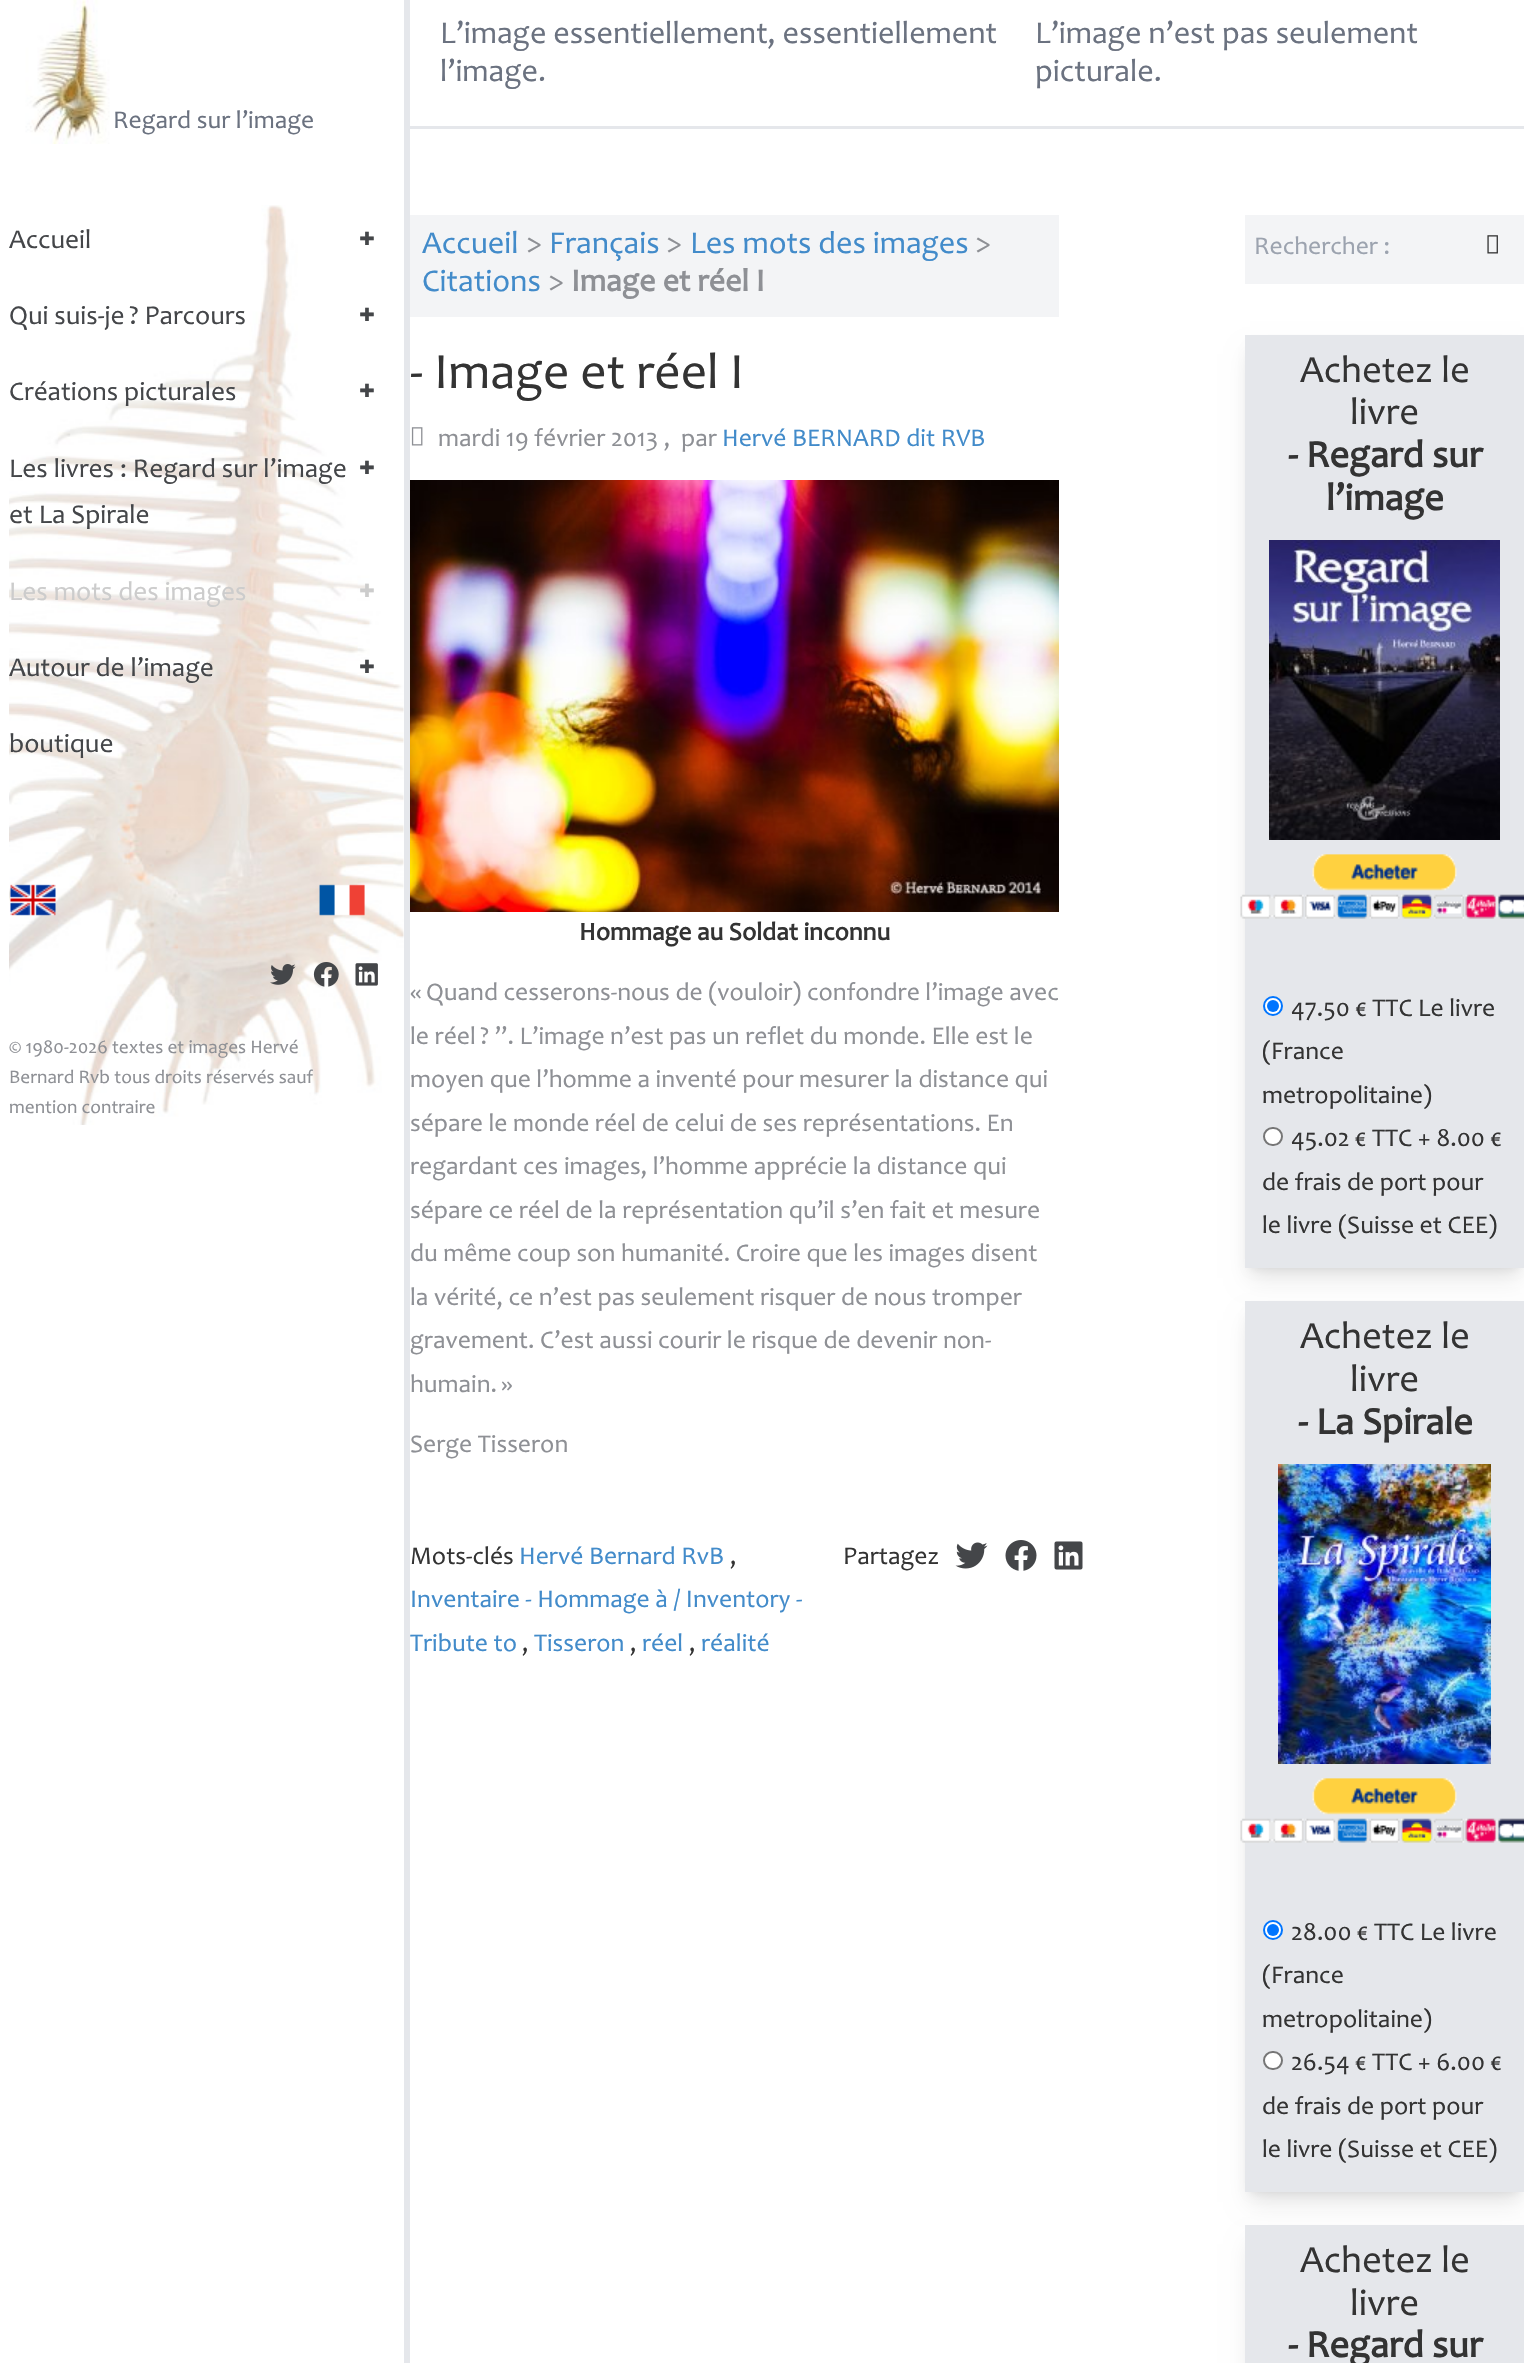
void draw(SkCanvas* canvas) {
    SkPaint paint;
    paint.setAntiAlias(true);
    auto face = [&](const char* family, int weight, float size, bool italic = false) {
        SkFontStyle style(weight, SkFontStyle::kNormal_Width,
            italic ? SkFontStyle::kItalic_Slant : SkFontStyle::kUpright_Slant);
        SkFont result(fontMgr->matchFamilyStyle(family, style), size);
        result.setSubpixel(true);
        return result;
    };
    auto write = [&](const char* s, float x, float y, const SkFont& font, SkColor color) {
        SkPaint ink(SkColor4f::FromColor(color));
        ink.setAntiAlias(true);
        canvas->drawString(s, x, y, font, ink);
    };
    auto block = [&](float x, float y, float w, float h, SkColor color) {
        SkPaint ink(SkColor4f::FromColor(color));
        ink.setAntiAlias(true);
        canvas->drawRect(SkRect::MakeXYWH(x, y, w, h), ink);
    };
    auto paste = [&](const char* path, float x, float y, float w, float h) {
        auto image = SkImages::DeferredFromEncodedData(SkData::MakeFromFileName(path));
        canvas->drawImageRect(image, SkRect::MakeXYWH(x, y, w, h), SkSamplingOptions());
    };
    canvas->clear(SK_ColorWHITE);
    block(404, 0, 6, 2363, SkColorSetRGB(229, 231, 235));
    paste("pic1.png", 25, 0, 85, 144);
    auto kFont1 = face("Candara", 400, 25.6f);
    write("Regard sur l’image", 113, 128, kFont1, SkColorSetRGB(107, 114, 128));
    paste("pic2.png", 9, 205, 395, 920);
    auto kFont2 = face("Candara", 400, 27.25f);
    write("Accueil", 9, 248, kFont2, SkColorSetRGB(68, 70, 73));
    auto kFont3 = face("Noto Sans", 900, 27.25f);
    write("+", 359, 248, kFont3, SkColorSetRGB(68, 70, 73));
    write("Qui suis-je", 9, 324, kFont2, SkColorSetRGB(68, 70, 73));
    write("? Parcours", 129, 324, kFont2, SkColorSetRGB(68, 70, 73));
    write("+", 359, 324, kFont3, SkColorSetRGB(68, 70, 73));
    write("Créations picturales", 9, 400, kFont2, SkColorSetRGB(68, 70, 73));
    write("+", 359, 400, kFont3, SkColorSetRGB(68, 70, 73));
    write("Les livres : Regard sur l’image", 9, 477, kFont2, SkColorSetRGB(68, 70, 73));
    write("et La Spirale", 9, 523, kFont2, SkColorSetRGB(68, 70, 73));
    write("+", 359, 477, kFont3, SkColorSetRGB(68, 70, 73));
    write("Les mots des images", 9, 600, kFont2, SkColorSetRGB(204, 204, 204));
    write("+", 359, 600, kFont3, SkColorSetRGB(204, 204, 204));
    write("Autour de l’image", 9, 676, kFont2, SkColorSetRGB(68, 70, 73));
    write("+", 359, 676, kFont3, SkColorSetRGB(68, 70, 73));
    write("boutique", 9, 752, kFont2, SkColorSetRGB(68, 70, 73));
    paste("pic3.png", 10, 884, 46, 32);
    paste("pic4.png", 319, 884, 46, 32);
    paste("pic5.png", 270, 964, 26, 21);
    paste("pic6.png", 313, 962, 26, 25);
    paste("pic7.png", 355, 963, 23, 23);
    auto kFont4 = face("Candara", 400, 19.25f);
    write("© 1980-2026 textes et images Hervé", 9, 1053, kFont4, SkColorSetRGB(142, 144, 149));
    write("Bernard Rvb tous droits réservés sauf", 9, 1083, kFont4, SkColorSetRGB(142, 144, 149));
    write("mention contraire", 9, 1113, kFont4, SkColorSetRGB(142, 144, 149));
    block(410, 126, 1114, 3, SkColorSetRGB(229, 231, 235));
    auto kFont5 = face("Candara", 400, 32);
    write("L’image essentiellement, essentiellement", 440, 43, kFont5, SkColorSetRGB(107, 114, 128));
    write("l’image.", 440, 81, kFont5, SkColorSetRGB(107, 114, 128));
    write("L’image n’est pas seulement", 1035, 43, kFont5, SkColorSetRGB(107, 114, 128));
    write("picturale.", 1035, 81, kFont5, SkColorSetRGB(107, 114, 128));
    block(410, 215, 649, 102, SkColorSetRGB(243, 244, 246));
    write("Accueil", 422, 253, kFont5, SkColorSetRGB(66, 139, 202));
    write(">", 526, 253, kFont5, SkColorSetRGB(142, 144, 149));
    write("Français", 549, 253, kFont5, SkColorSetRGB(66, 139, 202));
    write(">", 666, 253, kFont5, SkColorSetRGB(142, 144, 149));
    write("Les mots des images", 690, 253, kFont5, SkColorSetRGB(66, 139, 202));
    write(">", 975, 253, kFont5, SkColorSetRGB(142, 144, 149));
    write("Citations", 422, 291, kFont5, SkColorSetRGB(66, 139, 202));
    write(">", 548, 291, kFont5, SkColorSetRGB(142, 144, 149));
    auto kFont6 = face("Candara", 700, 32);
    write("Image et réel I", 571, 291, kFont6, SkColorSetRGB(142, 144, 149));
    auto kFont7 = face("Candara", 400, 51.25f);
    write("- Image et réel I", 410, 388, kFont7, SkColorSetRGB(51, 51, 51));
    paste("pic8.png", 411, 427, 12, 19);
    write("mardi 19 février 2013 ,", 438, 446, kFont1, SkColorSetRGB(142, 144, 149));
    write("par", 681, 446, kFont1, SkColorSetRGB(142, 144, 149));
    write("Hervé BERNARD dit RVB", 722, 446, kFont1, SkColorSetRGB(66, 139, 202));
    paste("pic9.png", 410, 480, 649, 432);
    auto kFont8 = face("Candara", 700, 25.6f);
    write("Hommage au Soldat inconnu", 579, 940, kFont8, SkColorSetRGB(51, 51, 51));
    write("«", 410, 1000, kFont1, SkColorSetRGB(142, 144, 149));
    write("Quand cesserons-nous de (vouloir) confondre l’image avec", 426, 1000, kFont1, SkColorSetRGB(142, 144, 149));
    write("le réel", 410, 1044, kFont1, SkColorSetRGB(142, 144, 149));
    write("? ”. L’image n’est pas un reflet du monde. Elle est le", 480, 1044, kFont1, SkColorSetRGB(142, 144, 149));
    write("moyen que l’homme a inventé pour mesurer la distance qui", 410, 1087, kFont1, SkColorSetRGB(142, 144, 149));
    write("sépare le monde réel de celui de ses représentations. En", 410, 1131, kFont1, SkColorSetRGB(142, 144, 149));
    write("regardant ces images, l’homme apprécie la distance qui", 410, 1174, kFont1, SkColorSetRGB(142, 144, 149));
    write("sépare ce réel de la représentation qu’il s’en fait et mesure", 410, 1218, kFont1, SkColorSetRGB(142, 144, 149));
    write("du même coup son humanité. Croire que les images disent", 410, 1261, kFont1, SkColorSetRGB(142, 144, 149));
    write("la vérité, ce n’est pas seulement risquer de nous tromper", 410, 1305, kFont1, SkColorSetRGB(142, 144, 149));
    write("gravement. C’est aussi courir le risque de devenir non-", 410, 1348, kFont1, SkColorSetRGB(142, 144, 149));
    write("humain.", 410, 1392, kFont1, SkColorSetRGB(142, 144, 149));
    write("»", 501, 1392, kFont1, SkColorSetRGB(142, 144, 149));
    write("Serge Tisseron", 410, 1452, kFont1, SkColorSetRGB(142, 144, 149));
    write("Mots-clés", 410, 1564, kFont1, SkColorSetRGB(51, 51, 51));
    write("Hervé Bernard RvB", 519, 1564, kFont1, SkColorSetRGB(66, 139, 202));
    write(",", 730, 1564, kFont1, SkColorSetRGB(51, 51, 51));
    write("Inventaire - Hommage à / Inventory -", 410, 1607, kFont1, SkColorSetRGB(66, 139, 202));
    write("Tribute to", 410, 1651, kFont1, SkColorSetRGB(66, 139, 202));
    write(",", 522, 1651, kFont1, SkColorSetRGB(51, 51, 51));
    write("Tisseron", 534, 1651, kFont1, SkColorSetRGB(66, 139, 202));
    write(",", 630, 1651, kFont1, SkColorSetRGB(51, 51, 51));
    write("réel", 642, 1651, kFont1, SkColorSetRGB(66, 139, 202));
    write(",", 689, 1651, kFont1, SkColorSetRGB(51, 51, 51));
    write("réalité", 701, 1651, kFont1, SkColorSetRGB(66, 139, 202));
    write("Partagez", 843, 1564, kFont1, SkColorSetRGB(51, 51, 51));
    paste("pic10.png", 955, 1542, 33, 27);
    paste("pic11.png", 1005, 1540, 32, 31);
    paste("pic12.png", 1054, 1541, 29, 29);
    block(1245, 215, 279, 69, SkColorSetRGB(243, 244, 246));
    write("Rechercher :", 1254, 254, kFont1, SkColorSetRGB(156, 163, 175));
    paste("pic13.png", 1487, 235, 11, 19);
    paint.setColor(SkColorSetARGB(26, 0, 0, 0));
    paint.setMaskFilter(SkMaskFilter::MakeBlur(kNormal_SkBlurStyle, 4.5f));
    canvas->drawRect(SkRect::MakeXYWH(1251, 347, 267, 921), paint);
    paint.setMaskFilter(nullptr);
    paint.setMaskFilter(SkMaskFilter::MakeBlur(kNormal_SkBlurStyle, 11));
    canvas->drawRect(SkRect::MakeXYWH(1250, 354, 270, 924), paint);
    paint.setMaskFilter(nullptr);
    block(1245, 335, 279, 933, SkColorSetRGB(229, 231, 235));
    auto kFont9 = face("Candara", 400, 38.5f);
    write("Achetez le", 1300, 382, kFont9, SkColorSetRGB(51, 51, 51));
    write("livre", 1350, 424, kFont9, SkColorSetRGB(51, 51, 51));
    auto kFont10 = face("Candara", 700, 38.5f);
    write("- Regard sur", 1288, 467, kFont10, SkColorSetRGB(51, 51, 51));
    write("l’image", 1326, 510, kFont10, SkColorSetRGB(51, 51, 51));
    paste("pic14.png", 1269, 540, 231, 300);
    paste("pic15.png", 1240, 854, 284, 65);
    paint.setColor(SK_ColorWHITE);
    canvas->drawCircle(1273, 1006, 9, paint);
    paint.setStyle(SkPaint::kStroke_Style);
    paint.setStrokeWidth(2);
    paint.setColor(SkColorSetRGB(0, 117, 255));
    canvas->drawCircle(1273, 1006, 9, paint);
    paint.setStyle(SkPaint::kFill_Style);
    canvas->drawCircle(1273, 1006, 6, paint);
    write("47.50 € TTC Le livre", 1291, 1016, kFont1, SkColorSetRGB(51, 51, 51));
    write("(France", 1262, 1059, kFont1, SkColorSetRGB(51, 51, 51));
    write("metropolitaine)", 1262, 1103, kFont1, SkColorSetRGB(51, 51, 51));
    paint.setColor(SK_ColorWHITE);
    canvas->drawRoundRect(SkRect::MakeXYWH(1264, 1128, 18, 17), 8.5f, 8.5f, paint);
    paint.setStyle(SkPaint::kStroke_Style);
    paint.setColor(SkColorSetRGB(118, 118, 118));
    canvas->drawRoundRect(SkRect::MakeXYWH(1264, 1128, 18, 17), 8.5f, 8.5f, paint);
    write("45.02 € TTC + 8.00 €", 1291, 1146, kFont1, SkColorSetRGB(51, 51, 51));
    write("de frais de port pour", 1262, 1190, kFont1, SkColorSetRGB(51, 51, 51));
    write("le livre (Suisse et CEE)", 1262, 1233, kFont1, SkColorSetRGB(51, 51, 51));
    paint.setStyle(SkPaint::kFill_Style);
    paint.setColor(SkColorSetARGB(26, 0, 0, 0));
    paint.setMaskFilter(SkMaskFilter::MakeBlur(kNormal_SkBlurStyle, 4.5f));
    canvas->drawRect(SkRect::MakeXYWH(1251, 1313, 267, 879), paint);
    paint.setMaskFilter(nullptr);
    paint.setMaskFilter(SkMaskFilter::MakeBlur(kNormal_SkBlurStyle, 11));
    canvas->drawRect(SkRect::MakeXYWH(1250, 1320, 270, 882), paint);
    paint.setMaskFilter(nullptr);
    block(1245, 1301, 279, 891, SkColorSetRGB(229, 231, 235));
    write("Achetez le", 1300, 1348, kFont9, SkColorSetRGB(51, 51, 51));
    write("livre", 1350, 1391, kFont9, SkColorSetRGB(51, 51, 51));
    write("- La Spirale", 1298, 1434, kFont10, SkColorSetRGB(51, 51, 51));
    paste("pic16.png", 1278, 1464, 213, 300);
    paste("pic15.png", 1240, 1778, 284, 65);
    paint.setColor(SK_ColorWHITE);
    canvas->drawCircle(1273, 1930, 9, paint);
    paint.setStyle(SkPaint::kStroke_Style);
    paint.setColor(SkColorSetRGB(0, 117, 255));
    canvas->drawCircle(1273, 1930, 9, paint);
    paint.setStyle(SkPaint::kFill_Style);
    canvas->drawCircle(1273, 1930, 6, paint);
    write("28.00 € TTC Le livre", 1291, 1940, kFont1, SkColorSetRGB(51, 51, 51));
    write("(France", 1262, 1983, kFont1, SkColorSetRGB(51, 51, 51));
    write("metropolitaine)", 1262, 2027, kFont1, SkColorSetRGB(51, 51, 51));
    paint.setColor(SK_ColorWHITE);
    canvas->drawRoundRect(SkRect::MakeXYWH(1264, 2052, 18, 17), 8.5f, 8.5f, paint);
    paint.setStyle(SkPaint::kStroke_Style);
    paint.setColor(SkColorSetRGB(118, 118, 118));
    canvas->drawRoundRect(SkRect::MakeXYWH(1264, 2052, 18, 17), 8.5f, 8.5f, paint);
    write("26.54 € TTC + 6.00 €", 1291, 2070, kFont1, SkColorSetRGB(51, 51, 51));
    write("de frais de port pour", 1262, 2114, kFont1, SkColorSetRGB(51, 51, 51));
    write("le livre (Suisse et CEE)", 1262, 2157, kFont1, SkColorSetRGB(51, 51, 51));
    paint.setStyle(SkPaint::kFill_Style);
    paint.setColor(SkColorSetARGB(26, 0, 0, 0));
    paint.setMaskFilter(SkMaskFilter::MakeBlur(kNormal_SkBlurStyle, 11));
    canvas->drawRect(SkRect::MakeXYWH(1250, 2244, 270, 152), paint);
    paint.setMaskFilter(nullptr);
    block(1245, 2225, 279, 138, SkColorSetRGB(229, 231, 235));
    write("Achetez le", 1300, 2272, kFont9, SkColorSetRGB(51, 51, 51));
    write("livre", 1350, 2315, kFont9, SkColorSetRGB(51, 51, 51));
    write("- Regard sur", 1288, 2357, kFont10, SkColorSetRGB(51, 51, 51));
}
